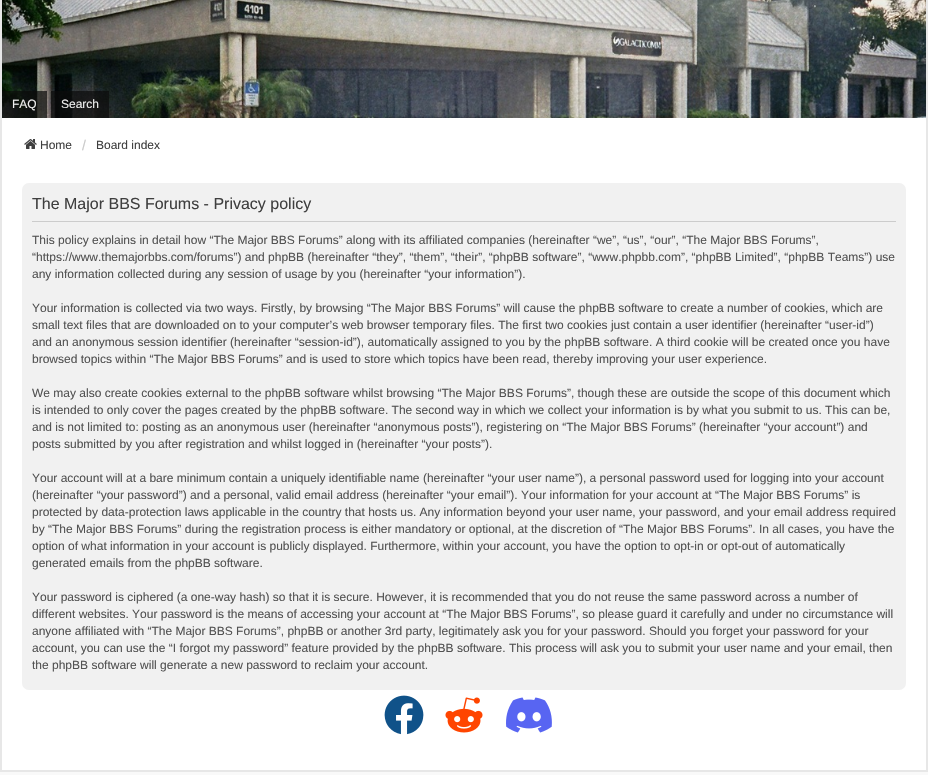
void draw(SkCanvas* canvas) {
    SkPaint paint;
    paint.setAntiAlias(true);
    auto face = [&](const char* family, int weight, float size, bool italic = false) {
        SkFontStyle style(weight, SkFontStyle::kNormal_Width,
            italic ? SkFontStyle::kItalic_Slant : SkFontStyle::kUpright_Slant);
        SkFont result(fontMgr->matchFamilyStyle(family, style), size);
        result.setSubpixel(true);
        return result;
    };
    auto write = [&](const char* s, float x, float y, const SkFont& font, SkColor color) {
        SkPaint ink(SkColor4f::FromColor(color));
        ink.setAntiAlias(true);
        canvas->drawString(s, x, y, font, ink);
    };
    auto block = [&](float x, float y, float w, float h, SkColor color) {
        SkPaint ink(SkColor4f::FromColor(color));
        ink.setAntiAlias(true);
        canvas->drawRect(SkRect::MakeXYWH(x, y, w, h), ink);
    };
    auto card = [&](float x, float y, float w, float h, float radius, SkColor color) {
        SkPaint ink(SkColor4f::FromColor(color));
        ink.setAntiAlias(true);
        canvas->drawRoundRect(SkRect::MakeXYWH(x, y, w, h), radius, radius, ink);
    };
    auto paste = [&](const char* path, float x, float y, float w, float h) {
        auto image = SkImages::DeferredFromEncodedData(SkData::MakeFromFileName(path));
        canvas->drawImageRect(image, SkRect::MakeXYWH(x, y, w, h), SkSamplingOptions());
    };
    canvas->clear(SkColorSetRGB(249, 249, 249));
    block(926, 0, 2, 772, SkColorSetRGB(231, 231, 231));
    block(0, 0, 2, 118, SkColorSetRGB(231, 231, 231));
    paste("pic1.png", 2, 0, 924, 118);
    block(2, 91, 45, 27, SkColorSetARGB(179, 10, 10, 10));
    auto kFont1 = face("Liberation Sans", 400, 12);
    write("FAQ", 12, 108, kFont1, SkColorSetRGB(238, 238, 238));
    block(51, 91, 58, 27, SkColorSetARGB(179, 10, 10, 10));
    write("Search", 61, 108, kFont1, SkColorSetRGB(238, 238, 238));
    block(2, 118, 924, 652, SK_ColorWHITE);
    block(0, 770, 928, 2, SkColorSetRGB(231, 231, 231));
    block(0, 118, 2, 654, SkColorSetRGB(231, 231, 231));
    paste("pic2.png", 24, 139, 13, 10);
    write("Home", 40, 149, kFont1, SkColorSetRGB(63, 63, 63));
    auto kFont2 = face("Liberation Sans", 400, 14);
    write("/", 82, 150, kFont2, SkColorSetRGB(202, 202, 202));
    write("Board index", 96, 149, kFont1, SkColorSetRGB(63, 63, 63));
    card(22, 183, 884, 507, 7, SkColorSetRGB(241, 241, 241));
    block(32, 221, 864, 1, SkColorSetRGB(204, 204, 204));
    auto kFont3 = face("Liberation Sans", 400, 16);
    write("The Major BBS Forums - Privacy policy", 32, 209, kFont3, SkColorSetRGB(63, 63, 63));
    write("This policy explains in detail how “The Major BBS Forums” along with its affiliated companies (hereinafter “we”, “us”, “our”, “The Major BBS Forums”,", 32, 244, kFont1, SkColorSetRGB(82, 82, 82));
    write("“https://www.themajorbbs.com/forums”) and phpBB (hereinafter “they”, “them”, “their”, “phpBB software”, “www.phpbb.com”, “phpBB Limited”, “phpBB Teams”) use", 32, 261, kFont1, SkColorSetRGB(82, 82, 82));
    write("any information collected during any session of usage by you (hereinafter “your information”).", 32, 278, kFont1, SkColorSetRGB(82, 82, 82));
    write("Your information is collected via two ways. Firstly, by browsing “The Major BBS Forums” will cause the phpBB software to create a number of cookies, which are", 32, 312, kFont1, SkColorSetRGB(82, 82, 82));
    write("small text files that are downloaded on to your computer’s web browser temporary files. The first two cookies just contain a user identifier (hereinafter “user-id”)", 32, 329, kFont1, SkColorSetRGB(82, 82, 82));
    write("and an anonymous session identifier (hereinafter “session-id”), automatically assigned to you by the phpBB software. A third cookie will be created once you have", 32, 346, kFont1, SkColorSetRGB(82, 82, 82));
    write("browsed topics within “The Major BBS Forums” and is used to store which topics have been read, thereby improving your user experience.", 32, 363, kFont1, SkColorSetRGB(82, 82, 82));
    write("We may also create cookies external to the phpBB software whilst browsing “The Major BBS Forums”, though these are outside the scope of this document which", 32, 397, kFont1, SkColorSetRGB(82, 82, 82));
    write("is intended to only cover the pages created by the phpBB software. The second way in which we collect your information is by what you submit to us. This can be,", 32, 414, kFont1, SkColorSetRGB(82, 82, 82));
    write("and is not limited to: posting as an anonymous user (hereinafter “anonymous posts”), registering on “The Major BBS Forums” (hereinafter “your account”) and", 32, 431, kFont1, SkColorSetRGB(82, 82, 82));
    write("posts submitted by you after registration and whilst logged in (hereinafter “your posts”).", 32, 448, kFont1, SkColorSetRGB(82, 82, 82));
    write("Your account will at a bare minimum contain a uniquely identifiable name (hereinafter “your user name”), a personal password used for logging into your account", 32, 482, kFont1, SkColorSetRGB(82, 82, 82));
    write("(hereinafter “your password”) and a personal, valid email address (hereinafter “your email”). Your information for your account at “The Major BBS Forums” is", 32, 499, kFont1, SkColorSetRGB(82, 82, 82));
    write("protected by data-protection laws applicable in the country that hosts us. Any information beyond your user name, your password, and your email address required", 32, 516, kFont1, SkColorSetRGB(82, 82, 82));
    write("by “The Major BBS Forums” during the registration process is either mandatory or optional, at the discretion of “The Major BBS Forums”. In all cases, you have the", 32, 533, kFont1, SkColorSetRGB(82, 82, 82));
    write("option of what information in your account is publicly displayed. Furthermore, within your account, you have the option to opt-in or opt-out of automatically", 32, 550, kFont1, SkColorSetRGB(82, 82, 82));
    write("generated emails from the phpBB software.", 32, 567, kFont1, SkColorSetRGB(82, 82, 82));
    write("Your password is ciphered (a one-way hash) so that it is secure. However, it is recommended that you do not reuse the same password across a number of", 32, 601, kFont1, SkColorSetRGB(82, 82, 82));
    write("different websites. Your password is the means of accessing your account at “The Major BBS Forums”, so please guard it carefully and under no circumstance will", 32, 618, kFont1, SkColorSetRGB(82, 82, 82));
    write("anyone affiliated with “The Major BBS Forums”, phpBB or another 3rd party, legitimately ask you for your password. Should you forget your password for your", 32, 635, kFont1, SkColorSetRGB(82, 82, 82));
    write("account, you can use the “I forgot my password” feature provided by the phpBB software. This process will ask you to submit your user name and your email, then", 32, 652, kFont1, SkColorSetRGB(82, 82, 82));
    write("the phpBB software will generate a new password to reclaim your account.", 32, 669, kFont1, SkColorSetRGB(82, 82, 82));
    paste("pic3.png", 384, 695, 40, 40);
    paste("pic4.png", 445, 697, 38, 36);
    paste("pic5.png", 506, 697, 46, 36);
}
